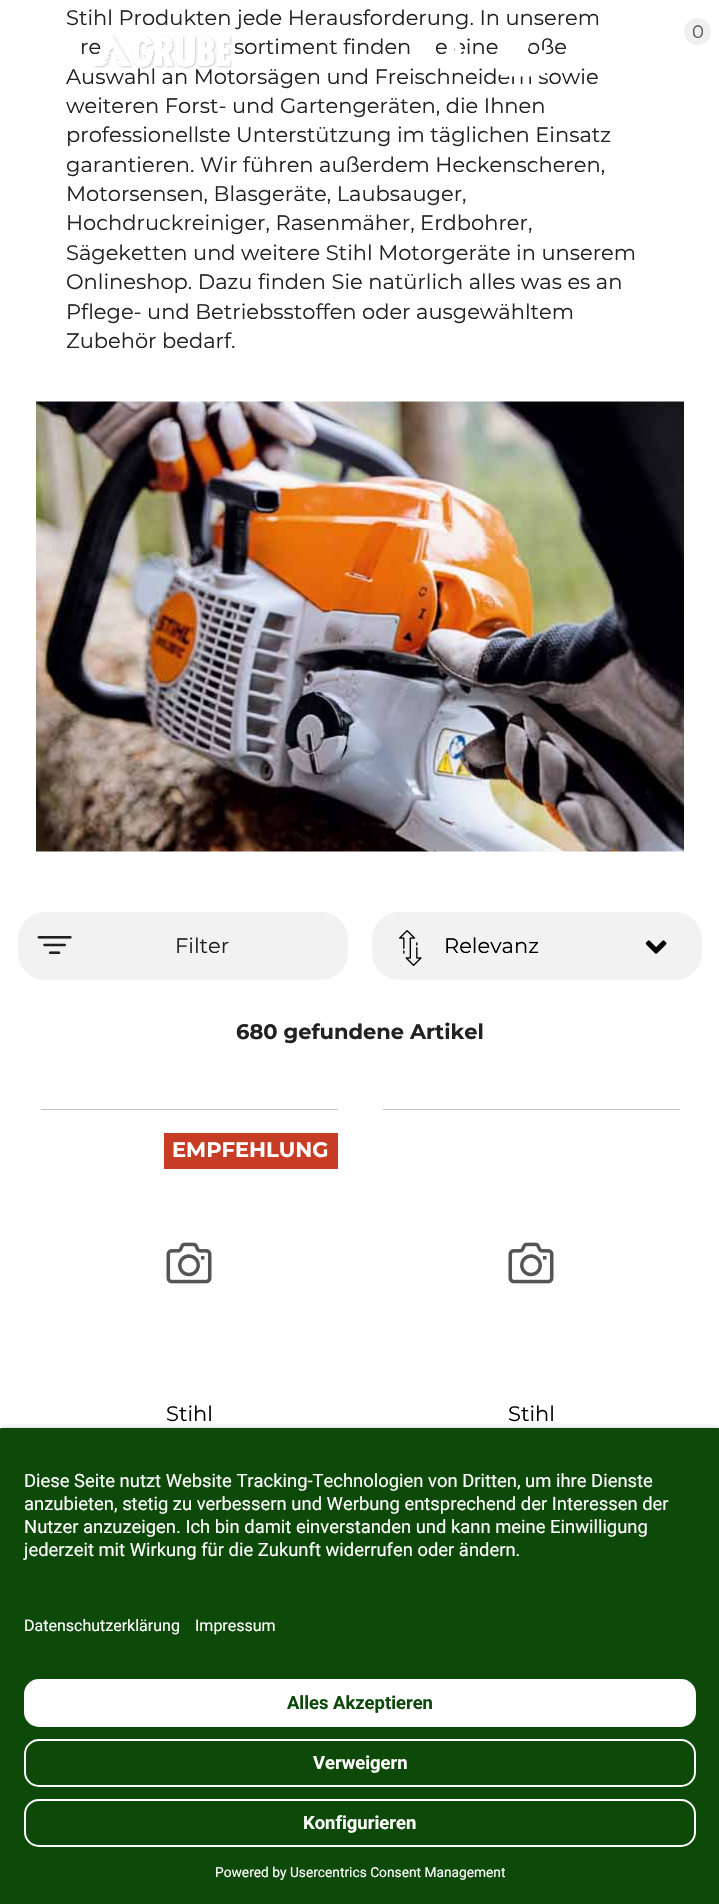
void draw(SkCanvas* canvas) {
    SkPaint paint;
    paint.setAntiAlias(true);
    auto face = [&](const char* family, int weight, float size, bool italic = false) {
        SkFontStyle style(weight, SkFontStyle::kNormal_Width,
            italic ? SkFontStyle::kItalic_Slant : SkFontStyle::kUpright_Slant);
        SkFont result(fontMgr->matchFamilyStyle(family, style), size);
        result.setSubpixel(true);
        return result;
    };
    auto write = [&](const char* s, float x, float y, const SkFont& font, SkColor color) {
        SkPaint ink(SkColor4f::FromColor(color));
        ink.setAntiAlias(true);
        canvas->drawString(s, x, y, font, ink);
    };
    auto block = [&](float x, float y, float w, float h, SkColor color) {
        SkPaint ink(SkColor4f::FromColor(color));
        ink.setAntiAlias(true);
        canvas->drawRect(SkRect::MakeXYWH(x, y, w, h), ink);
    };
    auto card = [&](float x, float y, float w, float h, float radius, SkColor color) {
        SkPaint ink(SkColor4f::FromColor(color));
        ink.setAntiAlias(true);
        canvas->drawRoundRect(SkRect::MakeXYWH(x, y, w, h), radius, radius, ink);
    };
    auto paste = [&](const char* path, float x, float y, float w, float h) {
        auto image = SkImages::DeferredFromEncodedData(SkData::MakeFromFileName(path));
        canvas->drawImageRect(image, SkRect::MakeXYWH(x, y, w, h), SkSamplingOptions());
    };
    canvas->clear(SK_ColorWHITE);
    auto kFont1 = face("Montserrat", 400, 21);
    write("Stihl Produkten jede Herausforderung. In unserem", 66, 25, kFont1, SkColorSetRGB(34, 34, 34));
    write("re", 80, 54, kFont1, SkColorSetRGB(34, 34, 34));
    write("sortiment finden", 234, 54, kFont1, SkColorSetRGB(34, 34, 34));
    write("e eine", 435, 54, kFont1, SkColorSetRGB(34, 34, 34));
    write("oße", 527, 54, kFont1, SkColorSetRGB(34, 34, 34));
    write("Auswahl an Motorsägen und Freischneidern sowie", 66, 84, kFont1, SkColorSetRGB(34, 34, 34));
    write("weiteren Forst- und Gartengeräten, die Ihnen", 66, 113, kFont1, SkColorSetRGB(34, 34, 34));
    write("professionellste Unterstützung im täglichen Einsatz", 66, 142, kFont1, SkColorSetRGB(34, 34, 34));
    write("garantieren. Wir führen außerdem Heckenscheren,", 66, 172, kFont1, SkColorSetRGB(34, 34, 34));
    write("Motorsensen, Blasgeräte, Laubsauger,", 66, 201, kFont1, SkColorSetRGB(34, 34, 34));
    write("Hochdruckreiniger, Rasenmäher, Erdbohrer,", 66, 230, kFont1, SkColorSetRGB(34, 34, 34));
    write("Sägeketten und weitere Stihl Motorgeräte in unserem", 66, 260, kFont1, SkColorSetRGB(34, 34, 34));
    write("Onlineshop. Dazu finden Sie natürlich alles was es an", 66, 289, kFont1, SkColorSetRGB(34, 34, 34));
    write("Pflege- und Betriebsstoffen oder ausgewähltem", 66, 319, kFont1, SkColorSetRGB(34, 34, 34));
    write("Zubehör bedarf.", 66, 348, kFont1, SkColorSetRGB(34, 34, 34));
    paste("pic1.png", 36, 401, 648, 451);
    card(18, 912, 330, 68, 27, SkColorSetRGB(242, 242, 242));
    paste("pic2.png", 37, 936, 35, 18);
    write("Filter", 175, 953, kFont1, SkColorSetRGB(34, 34, 34));
    card(372, 912, 330, 68, 27, SkColorSetRGB(242, 242, 242));
    paste("pic3.png", 399, 930, 23, 36);
    write("Relevanz", 444, 953, kFont1, SK_ColorBLACK);
    paste("pic4.png", 645, 940, 22, 14);
    auto kFont2 = face("Montserrat", 700, 21);
    write("680 gefundene Artikel", 236, 1039, kFont2, SkColorSetRGB(34, 34, 34));
    paint.setColor(SkColorSetRGB(195, 195, 195));
    canvas->drawPath(SkPathBuilder().moveTo(41, 1109).lineTo(41, 1110).lineTo(338, 1110).lineTo(338, 1649).lineTo(338, 1109).close().detach(), paint);
    block(164, 1133, 174, 36, SkColorSetRGB(199, 60, 36));
    write("EMPFEHLUNG", 172, 1157, kFont2, SK_ColorWHITE);
    paste("pic5.png", 166, 1242, 46, 42);
    write("Stihl", 166, 1421, kFont1, SK_ColorBLACK);
    canvas->drawPath(SkPathBuilder().moveTo(383, 1109).lineTo(383, 1110).lineTo(680, 1110).lineTo(680, 1649).lineTo(680, 1109).close().detach(), paint);
    paste("pic5.png", 508, 1242, 46, 42);
    write("Stihl", 508, 1421, kFont1, SK_ColorBLACK);
    paint.setColor(SkColorSetRGB(240, 240, 240));
    canvas->drawCircle(697.5f, 31.5f, 13.5f, paint);
    auto kFont3 = face("Montserrat", 400, 18);
    write("0", 692, 38, kFont3, SkColorSetRGB(85, 85, 85));
    paste("pic6.png", 426, 38, 44, 39);
    paste("pic7.png", 500, 42, 45, 35);
    paste("pic8.png", 68, 38, 1, 16);
    paste("pic9.png", 94, 35, 138, 34);
    paint.setColor(SkColorSetARGB(204, 0, 0, 0));
    paint.setMaskFilter(SkMaskFilter::MakeBlur(kNormal_SkBlurStyle, 5));
    canvas->drawRoundRect(SkRect::MakeXYWH(0, 1433, 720, 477), 1.5f, 1.5f, paint);
    paint.setMaskFilter(nullptr);
    paint.setColor(SkColorSetRGB(13, 74, 9));
    canvas->drawPath(SkPathBuilder().moveTo(1.5f, 1428).lineTo(718.5f, 1428).cubicTo(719.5f, 1428, 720, 1428.5f, 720, 1429.5f).lineTo(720, 1593).lineTo(0, 1593).lineTo(0, 1429.5f).cubicTo(0, 1428.5f, 0.5f, 1428, 1.5f, 1428).close().detach(), paint);
    auto kFont4 = face("Roboto", 400, 18.4f);
    write("Diese Seite nutzt Website Tracking-Technologien von Dritten, um ihre Dienste", 24, 1487, kFont4, SK_ColorWHITE);
    write("anzubieten, stetig zu verbessern und Werbung entsprechend der Interessen der", 24, 1510, kFont4, SK_ColorWHITE);
    write("Nutzer anzuzeigen. Ich bin damit einverstanden und kann meine Einwilligung", 24, 1533, kFont4, SK_ColorWHITE);
    write("jederzeit mit Wirkung für die Zukunft widerrufen oder ändern.", 24, 1556, kFont4, SK_ColorWHITE);
    block(0, 1593, 719, 311, SkColorSetRGB(13, 74, 9));
    auto kFont5 = face("Roboto", 400, 16);
    write("Datenschutzerklärung", 24, 1631, kFont5, SK_ColorWHITE);
    write("Impressum", 195, 1631, kFont5, SK_ColorWHITE);
    paint.setColor(SK_ColorWHITE);
    canvas->drawRoundRect(SkRect::MakeXYWH(25, 1680, 670, 46), 14, 14, paint);
    paint.setStyle(SkPaint::kStroke_Style);
    paint.setStrokeWidth(2);
    canvas->drawRoundRect(SkRect::MakeXYWH(25, 1680, 670, 46), 14, 14, paint);
    auto kFont6 = face("Roboto", 700, 18.4f);
    write("Alles Akzeptieren", 287, 1709, kFont6, SkColorSetRGB(13, 74, 9));
    canvas->drawRoundRect(SkRect::MakeXYWH(25, 1740, 670, 46), 14, 14, paint);
    write("Verweigern", 313, 1769, kFont6, SK_ColorWHITE);
    canvas->drawRoundRect(SkRect::MakeXYWH(25, 1800, 670, 46), 14, 14, paint);
    write("Konfigurieren", 303, 1829, kFont6, SK_ColorWHITE);
    auto kFont7 = face("Roboto", 400, 13.75f);
    write("Powered by Usercentrics Consent Management", 215, 1877, kFont7, SK_ColorWHITE);
}
